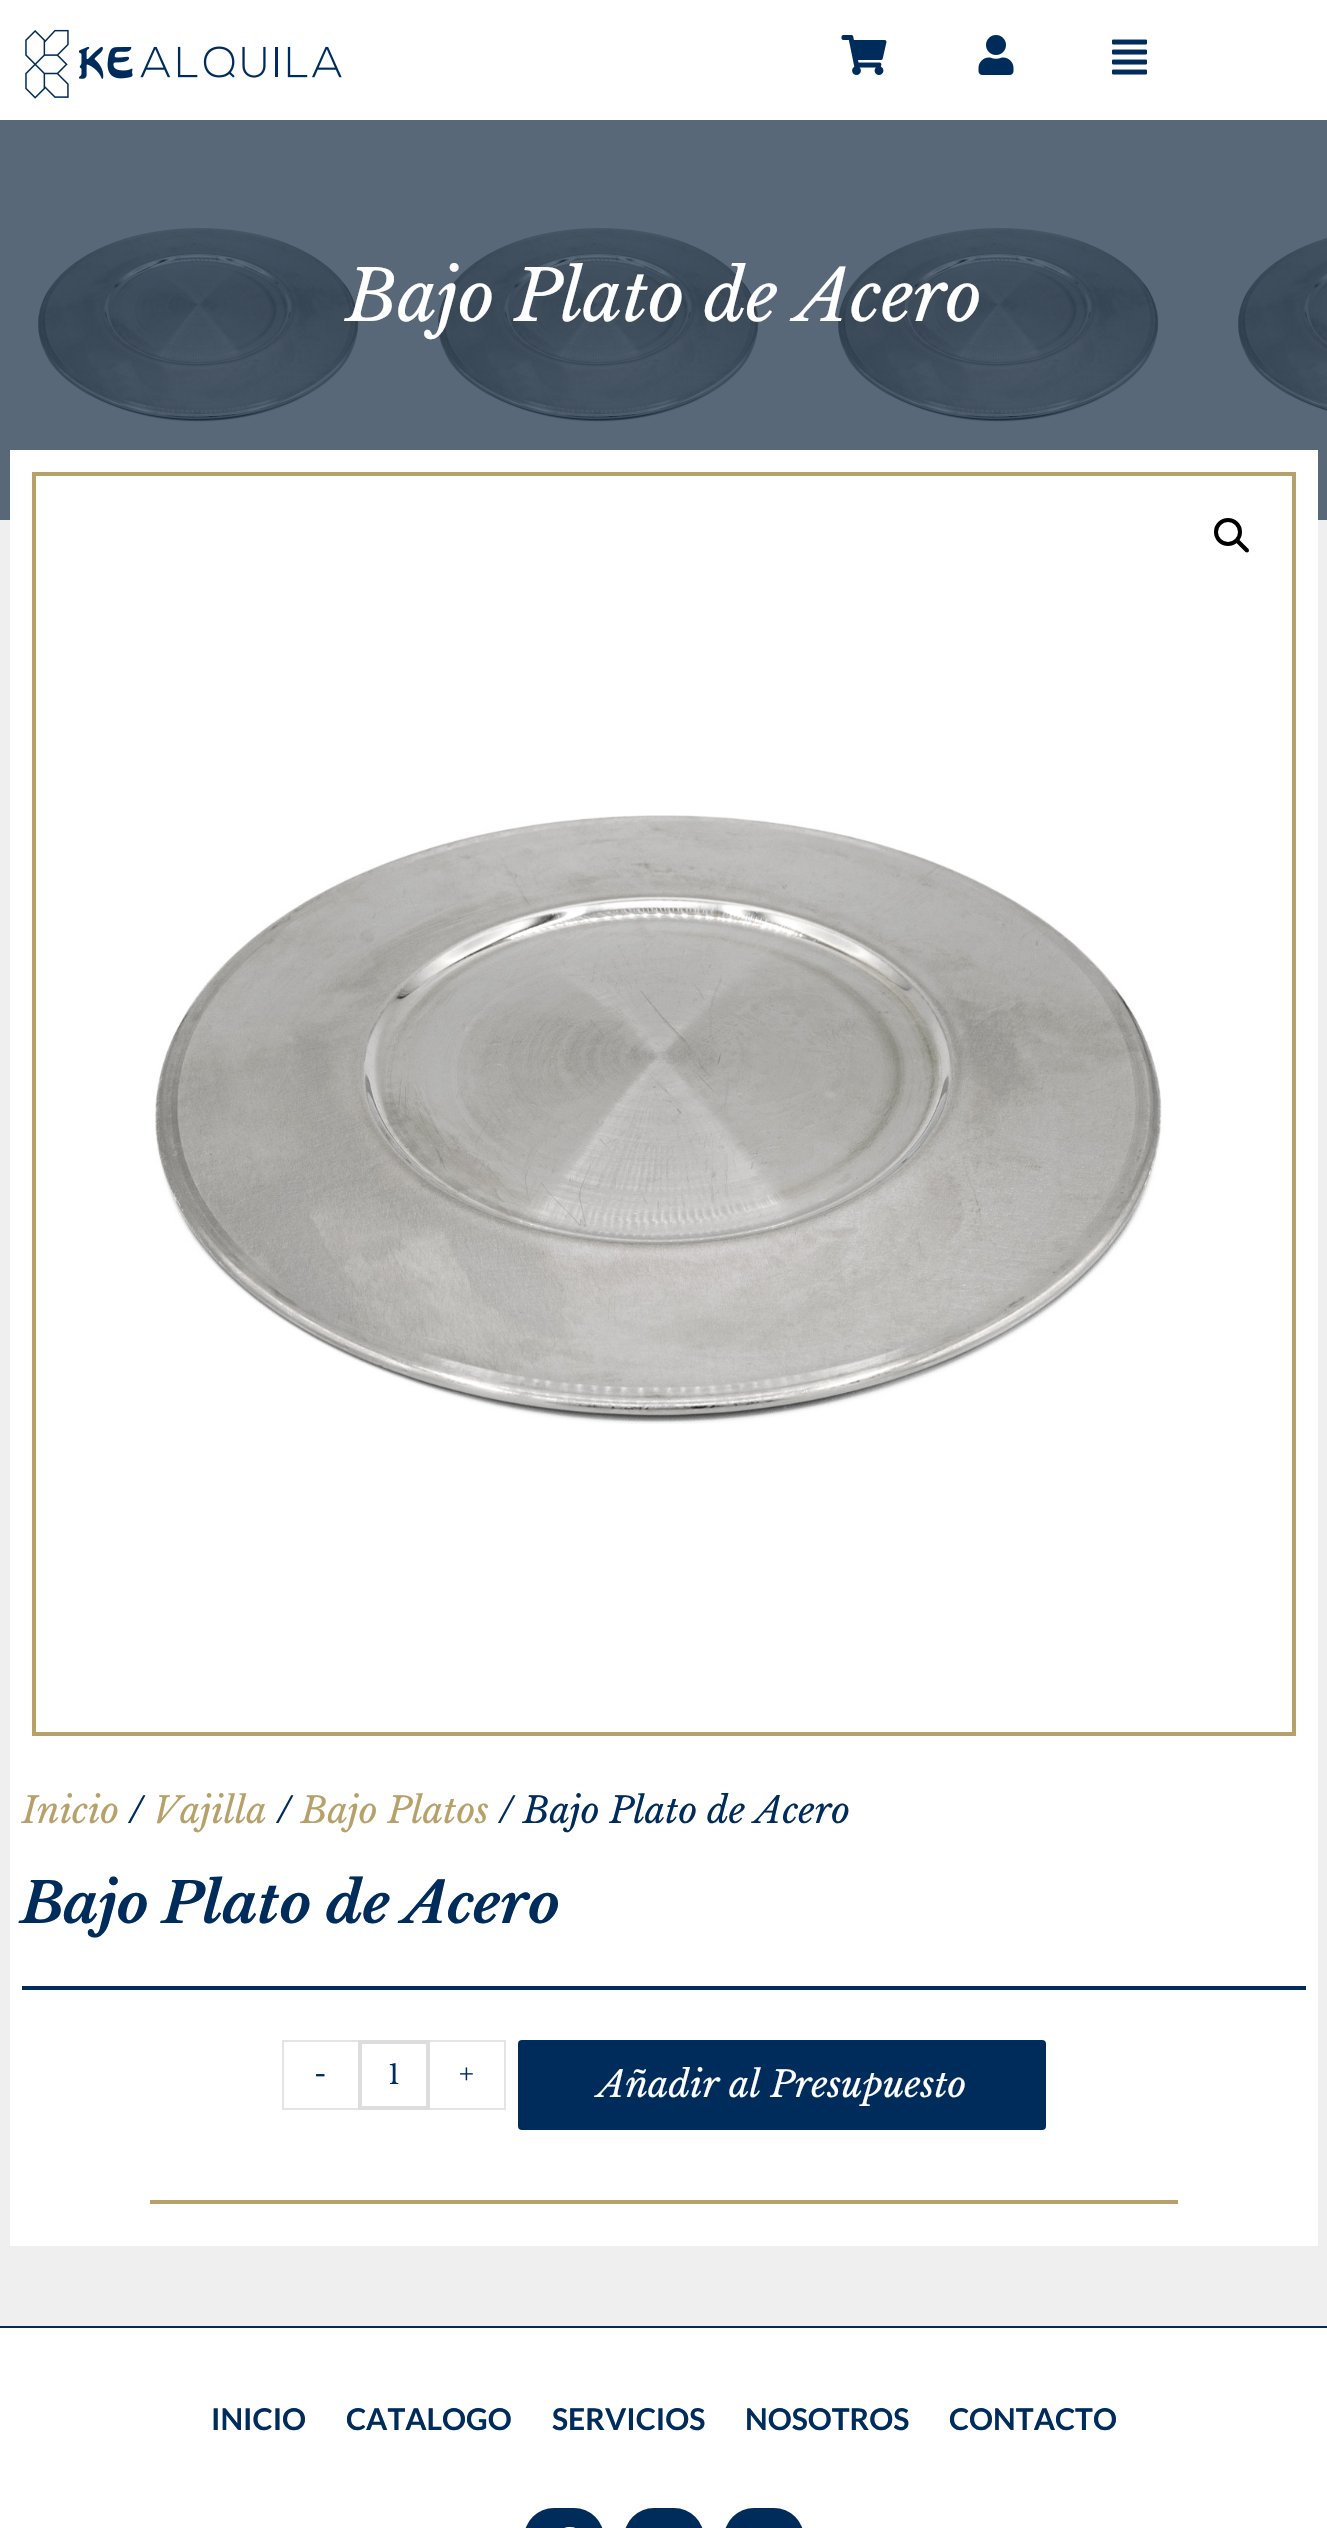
void draw(SkCanvas* canvas) {
    SkPaint paint;
    paint.setAntiAlias(true);
    auto face = [&](const char* family, int weight, float size, bool italic = false) {
        SkFontStyle style(weight, SkFontStyle::kNormal_Width,
            italic ? SkFontStyle::kItalic_Slant : SkFontStyle::kUpright_Slant);
        SkFont result(fontMgr->matchFamilyStyle(family, style), size);
        result.setSubpixel(true);
        return result;
    };
    auto write = [&](const char* s, float x, float y, const SkFont& font, SkColor color) {
        SkPaint ink(SkColor4f::FromColor(color));
        ink.setAntiAlias(true);
        canvas->drawString(s, x, y, font, ink);
    };
    auto block = [&](float x, float y, float w, float h, SkColor color) {
        SkPaint ink(SkColor4f::FromColor(color));
        ink.setAntiAlias(true);
        canvas->drawRect(SkRect::MakeXYWH(x, y, w, h), ink);
    };
    auto card = [&](float x, float y, float w, float h, float radius, SkColor color) {
        SkPaint ink(SkColor4f::FromColor(color));
        ink.setAntiAlias(true);
        canvas->drawRoundRect(SkRect::MakeXYWH(x, y, w, h), radius, radius, ink);
    };
    auto paste = [&](const char* path, float x, float y, float w, float h) {
        auto image = SkImages::DeferredFromEncodedData(SkData::MakeFromFileName(path));
        canvas->drawImageRect(image, SkRect::MakeXYWH(x, y, w, h), SkSamplingOptions());
    };
    canvas->clear(SkColorSetRGB(239, 239, 239));
    block(0, 0, 1327, 120, SK_ColorWHITE);
    paste("pic1.png", 25, 29, 317, 70);
    paste("pic2.png", 841, 35, 46, 40);
    paste("pic3.png", 978, 35, 36, 40);
    paste("pic4.png", 1112, 39, 35, 36);
    paste("pic5.png", 0, 120, 1327, 400);
    auto kFont1 = face("Libre Baskerville", 400, 70, true);
    write("Bajo Plato de Acero", 346, 321, kFont1, SK_ColorWHITE);
    block(10, 450, 1308, 1796, SK_ColorWHITE);
    paint.setStyle(SkPaint::kStroke_Style);
    paint.setStrokeWidth(4);
    paint.setColor(SkColorSetRGB(184, 160, 105));
    canvas->drawRect(SkRect::MakeXYWH(34, 474, 1260, 1260), paint);
    paste("pic6.png", 155, 815, 1007, 609);
    paint.setColor(SK_ColorBLACK);
    canvas->drawCircle(1228, 532, 12, paint);
    paint.setStyle(SkPaint::kFill_Style);
    canvas->drawPath(SkPathBuilder().moveTo(1237, 540.5f).cubicTo(1238, 539.5f, 1239, 539.5f, 1240, 540.5f).lineTo(1248.5f, 549).cubicTo(1249, 549.5f, 1249, 551, 1248.5f, 552).cubicTo(1247.5f, 552.5f, 1246.5f, 552.5f, 1245.5f, 552).lineTo(1237, 543.5f).cubicTo(1236, 542.5f, 1236, 541, 1237, 540.5f).close().detach(), paint);
    auto kFont2 = face("Libre Baskerville", 400, 36, true);
    write("Inicio", 22, 1823, kFont2, SkColorSetRGB(184, 160, 105));
    write("/", 129, 1823, kFont2, SkColorSetRGB(0, 44, 92));
    write("Vajilla", 153, 1823, kFont2, SkColorSetRGB(184, 160, 105));
    write("/", 277, 1823, kFont2, SkColorSetRGB(0, 44, 92));
    write("Bajo Platos", 301, 1823, kFont2, SkColorSetRGB(184, 160, 105));
    write("/ Bajo Plato de Acero", 499, 1823, kFont2, SkColorSetRGB(0, 44, 92));
    auto kFont3 = face("Libre Baskerville", 700, 56, true);
    write("Bajo Plato de Acero", 22, 1923, kFont3, SkColorSetRGB(0, 44, 92));
    block(22, 1986, 1284, 4, SkColorSetRGB(0, 44, 92));
    block(282, 2040, 76, 2, SkColorSetRGB(228, 228, 228));
    block(282, 2108, 76, 2, SkColorSetRGB(228, 228, 228));
    block(282, 2040, 2, 70, SkColorSetRGB(228, 228, 228));
    auto kFont4 = face("Libre Baskerville", 400, 27);
    write("-", 314, 2083, kFont4, SkColorSetRGB(0, 44, 92));
    paint.setStyle(SkPaint::kStroke_Style);
    paint.setColor(SkColorSetRGB(221, 221, 221));
    canvas->drawRect(SkRect::MakeXYWH(360, 2042, 68, 66), paint);
    write("1", 388, 2084, kFont4, SkColorSetRGB(0, 44, 92));
    block(430, 2040, 76, 2, SkColorSetRGB(228, 228, 228));
    block(504, 2040, 2, 70, SkColorSetRGB(228, 228, 228));
    block(430, 2108, 76, 2, SkColorSetRGB(228, 228, 228));
    write("+", 459, 2083, kFont4, SkColorSetRGB(0, 44, 92));
    card(518, 2040, 528, 90, 4, SkColorSetRGB(0, 44, 92));
    write("Añadir al Presupuesto", 598, 2097, kFont2, SK_ColorWHITE);
    block(150, 2200, 1028, 4, SkColorSetRGB(184, 160, 105));
    block(0, 2328, 1327, 200, SK_ColorWHITE);
    block(0, 2326, 1327, 2, SkColorSetRGB(0, 44, 92));
    auto kFont5 = face("Lato", 700, 30);
    write("INICIO", 211, 2430, kFont5, SkColorSetRGB(0, 44, 92));
    write("CATALOGO", 346, 2430, kFont5, SkColorSetRGB(0, 44, 92));
    write("SERVICIOS", 552, 2430, kFont5, SkColorSetRGB(0, 44, 92));
    write("NOSOTROS", 745, 2430, kFont5, SkColorSetRGB(0, 44, 92));
    write("CONTACTO", 949, 2430, kFont5, SkColorSetRGB(0, 44, 92));
    card(524, 2508, 80, 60, 40, SkColorSetRGB(0, 44, 92));
    paste("pic7.png", 564, 2527, 11, 1);
    card(624, 2508, 80, 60, 40, SkColorSetRGB(0, 44, 92));
    card(724, 2508, 80, 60, 40, SkColorSetRGB(0, 44, 92));
}
